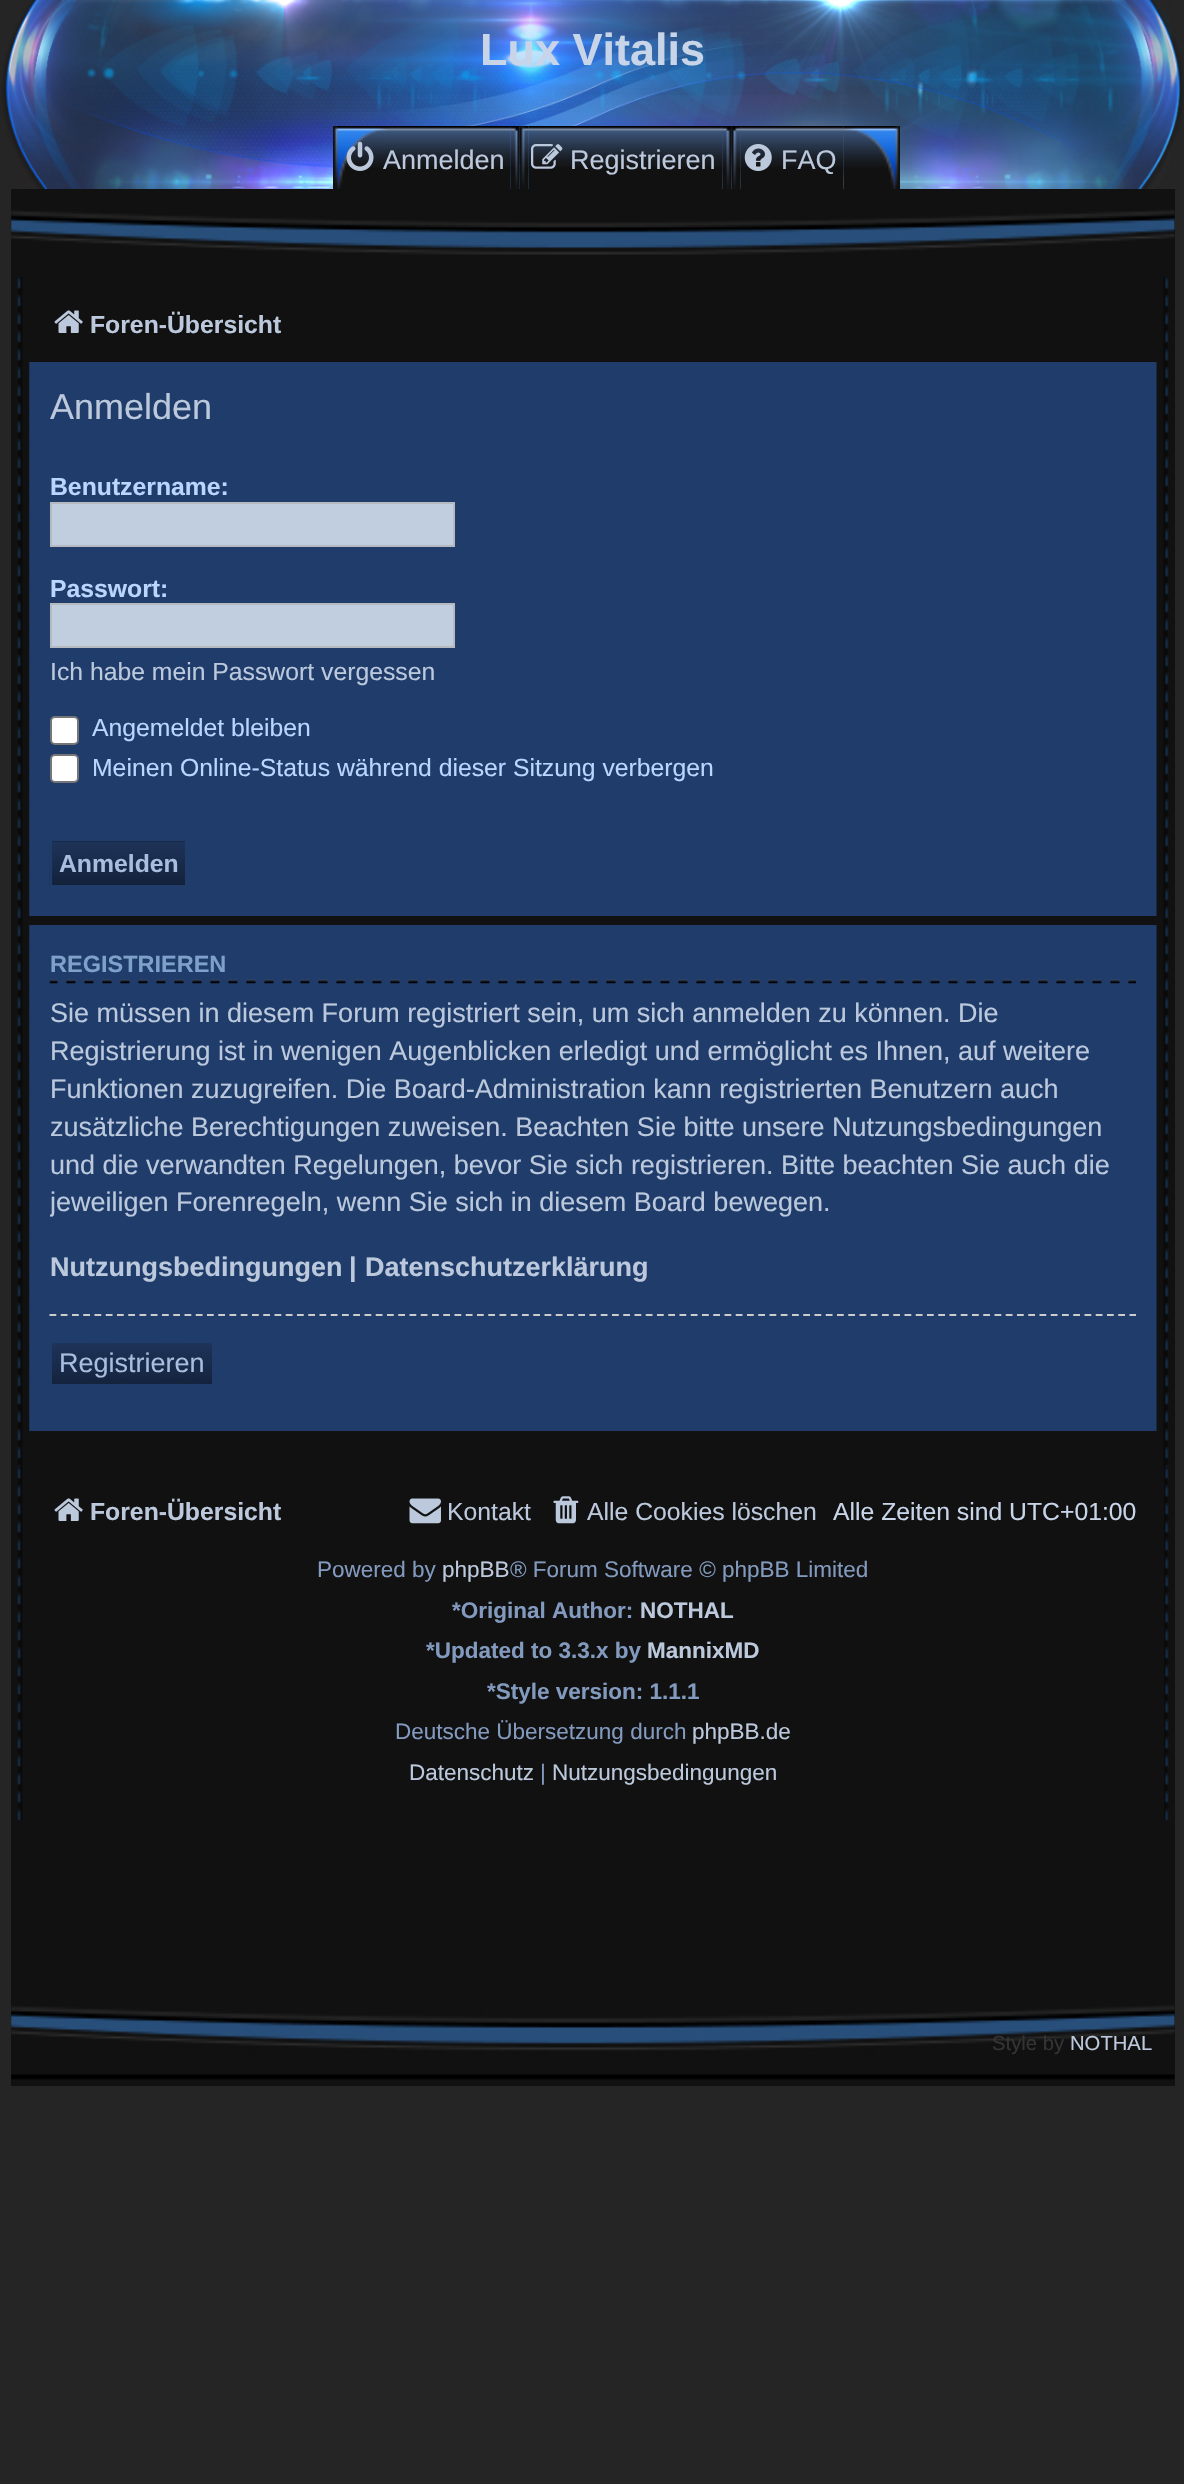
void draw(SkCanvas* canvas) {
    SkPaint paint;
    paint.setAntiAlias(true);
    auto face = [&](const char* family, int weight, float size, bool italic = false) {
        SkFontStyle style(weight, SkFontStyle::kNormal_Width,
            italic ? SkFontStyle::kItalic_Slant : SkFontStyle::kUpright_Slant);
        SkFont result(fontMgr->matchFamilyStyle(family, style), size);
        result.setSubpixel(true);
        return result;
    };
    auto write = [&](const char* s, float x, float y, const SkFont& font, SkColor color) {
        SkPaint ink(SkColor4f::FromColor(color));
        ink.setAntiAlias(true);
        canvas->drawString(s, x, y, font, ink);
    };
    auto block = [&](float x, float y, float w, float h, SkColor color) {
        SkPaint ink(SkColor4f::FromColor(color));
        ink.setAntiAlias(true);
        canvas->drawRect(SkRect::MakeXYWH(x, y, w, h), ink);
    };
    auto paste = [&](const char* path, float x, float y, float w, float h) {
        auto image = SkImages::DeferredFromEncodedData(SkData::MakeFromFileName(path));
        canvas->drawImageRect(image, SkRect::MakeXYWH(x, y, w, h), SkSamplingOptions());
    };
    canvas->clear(SkColorSetRGB(37, 37, 37));
    paste("pic1.png", 0, 0, 1184, 884);
    auto kFont1 = face("Liberation Sans", 700, 45);
    write("Lux Vitalis", 480, 65, kFont1, SkColorSetRGB(200, 213, 233));
    paste("pic2.png", 389, 126, 122, 63);
    paste("pic3.png", 333, 126, 56, 63);
    paste("pic4.png", 346, 141, 28, 30);
    auto kFont2 = face("Liberation Sans", 400, 27);
    write("Anmelden", 383, 169, kFont2, SkColorSetRGB(188, 201, 221));
    paste("pic5.png", 510, 126, 10, 63);
    paste("pic6.png", 528, 126, 195, 63);
    paste("pic7.png", 519, 126, 10, 63);
    paste("pic8.png", 531, 144, 32, 25);
    write("Registrieren", 570, 169, kFont2, SkColorSetRGB(188, 201, 221));
    paste("pic9.png", 722, 126, 10, 63);
    paste("pic10.png", 740, 126, 104, 63);
    paste("pic11.png", 731, 126, 10, 63);
    paste("pic12.png", 744, 144, 28, 27);
    write("FAQ", 781, 169, kFont2, SkColorSetRGB(188, 201, 221));
    paste("pic13.png", 843, 126, 57, 63);
    block(11, 189, 1164, 1897, SkColorSetRGB(17, 17, 17));
    paste("pic14.png", 11, 209, 1164, 46);
    block(29, 362, 1128, 554, SkColorSetRGB(31, 60, 107));
    block(29, 925, 1128, 506, SkColorSetRGB(31, 60, 107));
    paste("pic15.png", 17, 277, 13, 1190);
    paste("pic16.png", 54, 310, 29, 23);
    auto kFont3 = face("Liberation Sans", 700, 24.75f);
    write("Foren-Übersicht", 90, 333, kFont3, SkColorSetRGB(188, 201, 221));
    paste("pic17.png", 1156, 277, 13, 1190);
    auto kFont4 = face("Liberation Sans", 400, 36);
    write("Anmelden", 50, 419, kFont4, SkColorSetRGB(188, 201, 221));
    write("Benutzername:", 50, 495, kFont3, SkColorSetRGB(186, 214, 255));
    paint.setColor(SkColorSetRGB(192, 206, 223));
    canvas->drawRect(SkRect::MakeXYWH(51, 503, 403, 43), paint);
    paint.setStyle(SkPaint::kStroke_Style);
    paint.setStrokeWidth(2);
    paint.setColor(SkColorSetRGB(180, 186, 192));
    canvas->drawRect(SkRect::MakeXYWH(51, 503, 403, 43), paint);
    write("Passwort:", 50, 597, kFont3, SkColorSetRGB(186, 214, 255));
    paint.setStyle(SkPaint::kFill_Style);
    paint.setColor(SkColorSetRGB(192, 206, 223));
    canvas->drawRect(SkRect::MakeXYWH(51, 604, 403, 43), paint);
    paint.setStyle(SkPaint::kStroke_Style);
    paint.setColor(SkColorSetRGB(180, 186, 192));
    canvas->drawRect(SkRect::MakeXYWH(51, 604, 403, 43), paint);
    auto kFont5 = face("Liberation Sans", 400, 24.75f);
    write("Ich habe mein Passwort vergessen", 50, 680, kFont5, SkColorSetRGB(188, 201, 221));
    paint.setStyle(SkPaint::kFill_Style);
    paint.setColor(SK_ColorWHITE);
    canvas->drawRoundRect(SkRect::MakeXYWH(51, 717, 27, 27), 4, 4, paint);
    paint.setStyle(SkPaint::kStroke_Style);
    paint.setColor(SkColorSetRGB(118, 118, 118));
    canvas->drawRoundRect(SkRect::MakeXYWH(51, 717, 27, 27), 4, 4, paint);
    write("Angemeldet bleiben", 92, 736, kFont5, SkColorSetRGB(186, 214, 255));
    paint.setStyle(SkPaint::kFill_Style);
    paint.setColor(SK_ColorWHITE);
    canvas->drawRoundRect(SkRect::MakeXYWH(51, 755, 27, 27), 4, 4, paint);
    paint.setStyle(SkPaint::kStroke_Style);
    paint.setColor(SkColorSetRGB(118, 118, 118));
    canvas->drawRoundRect(SkRect::MakeXYWH(51, 755, 27, 27), 4, 4, paint);
    write("Meinen Online-Status während dieser Sitzung verbergen", 92, 776, kFont5, SkColorSetRGB(186, 214, 255));
    block(52, 841, 133, 1, SkColorSetRGB(16, 29, 51));
    paste("pic18.png", 49, 841, 136, 46);
    paint.setColor(SkColorSetRGB(31, 60, 107));
    canvas->drawRect(SkRect::MakeXYWH(51, 840, 135, 46), paint);
    write("Anmelden", 59, 872, kFont3, SkColorSetRGB(169, 190, 222));
    paste("pic19.png", 49, 979, 1088, 5);
    auto kFont6 = face("Liberation Sans", 700, 23.5f);
    write("REGISTRIEREN", 50, 972, kFont6, SkColorSetRGB(126, 161, 201));
    write("Sie müssen in diesem Forum registriert sein, um sich anmelden zu können. Die", 50, 1022, kFont2, SkColorSetRGB(188, 201, 221));
    write("Registrierung ist in wenigen Augenblicken erledigt und ermöglicht es Ihnen, auf weitere", 50, 1060, kFont2, SkColorSetRGB(188, 201, 221));
    write("Funktionen zuzugreifen. Die Board-Administration kann registrierten Benutzern auch", 50, 1098, kFont2, SkColorSetRGB(188, 201, 221));
    write("zusätzliche Berechtigungen zuweisen. Beachten Sie bitte unsere Nutzungsbedingungen", 50, 1136, kFont2, SkColorSetRGB(188, 201, 221));
    write("und die verwandten Regelungen, bevor Sie sich registrieren. Bitte beachten Sie auch die", 50, 1174, kFont2, SkColorSetRGB(188, 201, 221));
    canvas->save();
    canvas->clipRect(SkRect::MakeXYWH(50, 995, 1086, 227));
    write("jeweiligen Forenregeln, wenn Sie sich in diesem Board bewegen.", 50, 1211, kFont2, SkColorSetRGB(188, 201, 221));
    canvas->restore();
    auto kFont7 = face("Liberation Sans", 700, 27);
    write("Nutzungsbedingungen", 50, 1276, kFont7, SkColorSetRGB(188, 201, 221));
    write("|", 349, 1276, kFont7, SkColorSetRGB(188, 201, 221));
    write("Datenschutzerklärung", 365, 1276, kFont7, SkColorSetRGB(188, 201, 221));
    paint.setStrokeWidth(2.2f);
    paint.setColor(SkColorSetRGB(204, 204, 204));
    paint.setPathEffect(SkDashPathEffect::Make({{6.75f, 4.5f}}, 0));
    canvas->drawPath(SkPathBuilder().moveTo(49.5f, 1315).lineTo(1136, 1315).detach(), paint);
    paint.setPathEffect(nullptr);
    paste("pic20.png", 49, 1343, 163, 43);
    paint.setStrokeWidth(2);
    paint.setColor(SkColorSetRGB(31, 60, 107));
    canvas->drawRect(SkRect::MakeXYWH(51, 1342, 162, 43), paint);
    write("Registrieren", 59, 1372, kFont2, SkColorSetRGB(169, 190, 222));
    paste("pic21.png", 17, 1467, 6, 353);
    paste("pic16.png", 54, 1498, 29, 23);
    write("Foren-Übersicht", 90, 1520, kFont3, SkColorSetRGB(188, 201, 221));
    paste("pic22.png", 409, 1498, 32, 26);
    write("Kontakt", 447, 1520, kFont5, SkColorSetRGB(188, 201, 221));
    paste("pic23.png", 553, 1496, 26, 28);
    write("Alle Cookies löschen", 587, 1520, kFont5, SkColorSetRGB(188, 201, 221));
    write("Alle Zeiten sind UTC+01:00", 833, 1520, kFont5, SkColorSetRGB(200, 213, 233));
    paste("pic24.png", 1164, 1467, 5, 353);
    auto kFont8 = face("Liberation Sans", 400, 22.5f);
    write("Powered by", 317, 1577, kFont8, SkColorSetRGB(131, 154, 191));
    write("phpBB", 442, 1577, kFont8, SkColorSetRGB(188, 201, 221));
    write("® Forum Software © phpBB Limited", 510, 1577, kFont8, SkColorSetRGB(131, 154, 191));
    auto kFont9 = face("Liberation Sans", 700, 22.5f);
    write("*Original Author:", 452, 1618, kFont9, SkColorSetRGB(131, 154, 191));
    write("NOTHAL", 640, 1618, kFont9, SkColorSetRGB(188, 201, 221));
    write("*Updated to 3.3.x by", 426, 1658, kFont9, SkColorSetRGB(131, 154, 191));
    write("MannixMD", 647, 1658, kFont9, SkColorSetRGB(188, 201, 221));
    write("*Style version: 1.1.1", 487, 1699, kFont9, SkColorSetRGB(131, 154, 191));
    write("Deutsche Übersetzung durch", 395, 1739, kFont8, SkColorSetRGB(131, 154, 191));
    write("phpBB.de", 692, 1739, kFont8, SkColorSetRGB(188, 201, 221));
    write("Datenschutz", 409, 1780, kFont8, SkColorSetRGB(188, 201, 221));
    write("|", 540, 1780, kFont8, SkColorSetRGB(131, 154, 191));
    write("Nutzungsbedingungen", 552, 1780, kFont8, SkColorSetRGB(188, 201, 221));
    paste("pic25.png", 11, 2005, 1164, 75);
    auto kFont10 = face("Liberation Sans", 400, 20.25f);
    write("Style by", 992, 2050, kFont10, SkColorSetRGB(52, 52, 52));
    write("NOTHAL", 1070, 2050, kFont10, SkColorSetRGB(188, 201, 221));
}
